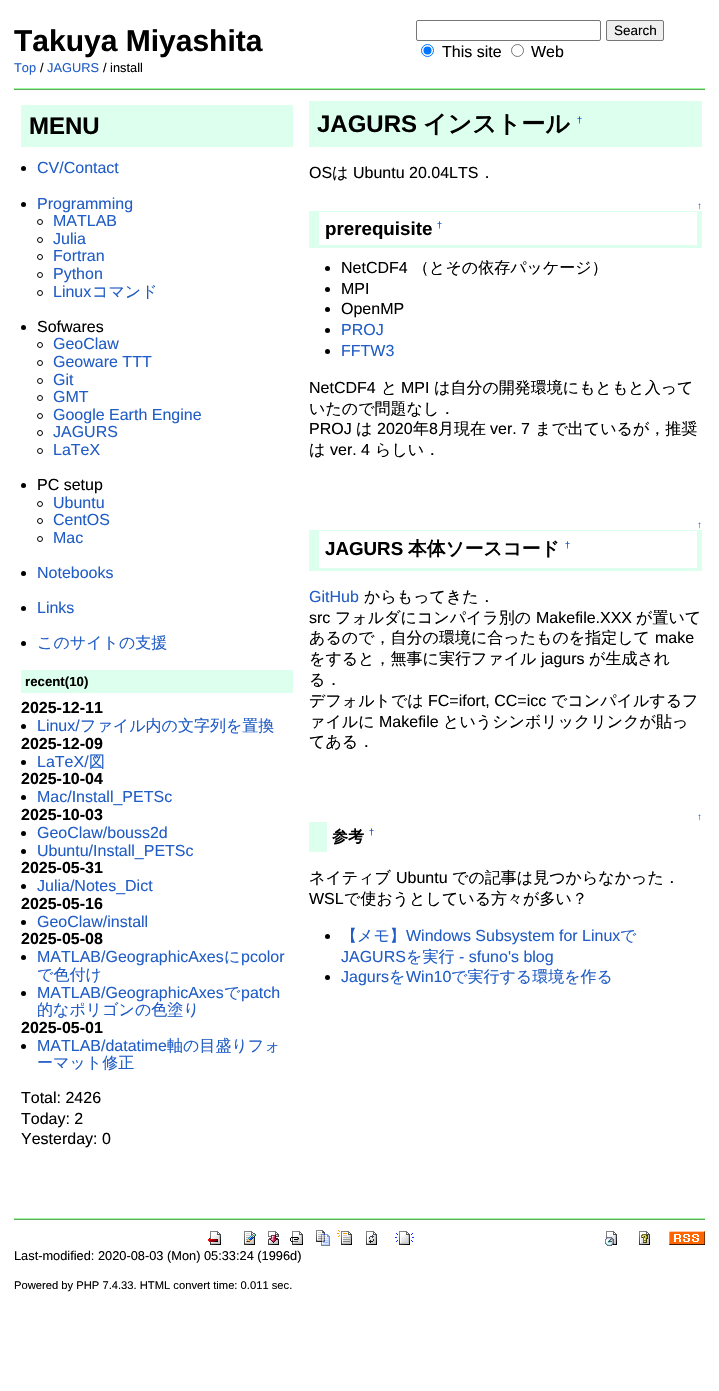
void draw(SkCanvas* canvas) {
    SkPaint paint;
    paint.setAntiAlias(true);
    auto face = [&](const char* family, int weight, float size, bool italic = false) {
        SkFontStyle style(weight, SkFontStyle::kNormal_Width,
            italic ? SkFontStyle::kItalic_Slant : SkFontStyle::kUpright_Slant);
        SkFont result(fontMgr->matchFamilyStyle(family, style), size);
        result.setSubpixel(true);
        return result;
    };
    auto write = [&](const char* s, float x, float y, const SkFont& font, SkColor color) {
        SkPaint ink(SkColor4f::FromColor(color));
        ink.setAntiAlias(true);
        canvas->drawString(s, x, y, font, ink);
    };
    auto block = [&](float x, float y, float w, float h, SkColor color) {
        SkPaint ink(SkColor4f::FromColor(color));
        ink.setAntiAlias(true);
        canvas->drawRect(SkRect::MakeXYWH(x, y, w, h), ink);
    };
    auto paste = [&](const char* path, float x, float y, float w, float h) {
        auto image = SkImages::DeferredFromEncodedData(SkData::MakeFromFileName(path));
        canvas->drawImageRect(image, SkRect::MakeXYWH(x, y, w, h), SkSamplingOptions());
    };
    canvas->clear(SK_ColorWHITE);
    auto kFont1 = face("Liberation Sans", 700, 30);
    write("Takuya Miyashita", 14, 51, kFont1, SK_ColorBLACK);
    paint.setStyle(SkPaint::kStroke_Style);
    paint.setStrokeWidth(1);
    paint.setColor(SkColorSetRGB(118, 118, 118));
    canvas->drawRoundRect(SkRect::MakeXYWH(416.5f, 20.5f, 184, 20), 1.5f, 1.5f, paint);
    paint.setStyle(SkPaint::kFill_Style);
    paint.setColor(SkColorSetRGB(239, 239, 239));
    canvas->drawRoundRect(SkRect::MakeXYWH(606.5f, 20.5f, 57, 20), 1.5f, 1.5f, paint);
    paint.setStyle(SkPaint::kStroke_Style);
    paint.setColor(SkColorSetRGB(118, 118, 118));
    canvas->drawRoundRect(SkRect::MakeXYWH(606.5f, 20.5f, 57, 20), 1.5f, 1.5f, paint);
    auto kFont2 = face("Liberation Sans", 400, 13.5f);
    write("Search", 614, 35, kFont2, SK_ColorBLACK);
    paint.setColor(SkColorSetRGB(0, 117, 255));
    canvas->drawCircle(427.5f, 50.5f, 6, paint);
    paint.setStyle(SkPaint::kFill_Style);
    canvas->drawCircle(427.5f, 50.5f, 4, paint);
    auto kFont3 = face("Liberation Sans", 400, 16);
    write("This site", 442, 57, kFont3, SK_ColorBLACK);
    paint.setStyle(SkPaint::kStroke_Style);
    paint.setColor(SkColorSetRGB(118, 118, 118));
    canvas->drawCircle(517.5f, 50.5f, 6, paint);
    write("Web", 531, 57, kFont3, SK_ColorBLACK);
    auto kFont4 = face("Liberation Sans", 400, 12.8f);
    write("Top", 14, 72, kFont4, SkColorSetRGB(33, 93, 198));
    write("/", 40, 72, kFont4, SK_ColorBLACK);
    write("JAGURS", 47, 72, kFont4, SkColorSetRGB(33, 93, 198));
    write("/ install", 103, 72, kFont4, SK_ColorBLACK);
    block(14, 88, 691, 1, SkColorSetRGB(152, 251, 152));
    block(14, 89, 691, 1, SkColorSetRGB(101, 167, 101));
    block(21, 105, 272, 42, SkColorSetRGB(221, 255, 238));
    auto kFont5 = face("Liberation Sans", 700, 24);
    write("MENU", 29, 134, kFont5, SK_ColorBLACK);
    paint.setStyle(SkPaint::kFill_Style);
    paint.setColor(SK_ColorBLACK);
    canvas->drawCircle(23.5f, 168.5f, 2.5f, paint);
    write("CV/Contact", 37, 173, kFont3, SkColorSetRGB(33, 93, 198));
    canvas->drawCircle(23.5f, 204.5f, 2.5f, paint);
    write("Programming", 37, 209, kFont3, SkColorSetRGB(33, 93, 198));
    paint.setStyle(SkPaint::kStroke_Style);
    canvas->drawCircle(40, 222, 2.5f, paint);
    write("MATLAB", 53, 226, kFont3, SkColorSetRGB(33, 93, 198));
    canvas->drawCircle(40, 240, 2.5f, paint);
    write("Julia", 53, 244, kFont3, SkColorSetRGB(33, 93, 198));
    canvas->drawCircle(40, 257, 2.5f, paint);
    write("Fortran", 53, 261, kFont3, SkColorSetRGB(33, 93, 198));
    canvas->drawCircle(40, 275, 2.5f, paint);
    write("Python", 53, 279, kFont3, SkColorSetRGB(33, 93, 198));
    canvas->drawCircle(40, 293, 2.5f, paint);
    write("Linux", 53, 297, kFont3, SkColorSetRGB(33, 93, 198));
    auto kFont6 = face("WenQuanYi Zen Hei", 500, 16);
    write("コマンド", 92, 297, kFont6, SkColorSetRGB(33, 93, 198));
    paint.setStyle(SkPaint::kFill_Style);
    canvas->drawCircle(23.5f, 327.5f, 2.5f, paint);
    write("Sofwares", 37, 332, kFont3, SK_ColorBLACK);
    paint.setStyle(SkPaint::kStroke_Style);
    canvas->drawCircle(40, 345, 2.5f, paint);
    write("GeoClaw", 53, 349, kFont3, SkColorSetRGB(33, 93, 198));
    canvas->drawCircle(40, 363, 2.5f, paint);
    write("Geoware TTT", 53, 367, kFont3, SkColorSetRGB(33, 93, 198));
    canvas->drawCircle(40, 381, 2.5f, paint);
    write("Git", 53, 385, kFont3, SkColorSetRGB(33, 93, 198));
    canvas->drawCircle(40, 398, 2.5f, paint);
    write("GMT", 53, 402, kFont3, SkColorSetRGB(33, 93, 198));
    canvas->drawCircle(40, 416, 2.5f, paint);
    write("Google Earth Engine", 53, 420, kFont3, SkColorSetRGB(33, 93, 198));
    canvas->drawCircle(40, 433, 2.5f, paint);
    write("JAGURS", 53, 437, kFont3, SkColorSetRGB(33, 93, 198));
    canvas->drawCircle(40, 451, 2.5f, paint);
    write("LaTeX", 53, 455, kFont3, SkColorSetRGB(33, 93, 198));
    paint.setStyle(SkPaint::kFill_Style);
    canvas->drawCircle(23.5f, 485.5f, 2.5f, paint);
    write("PC setup", 37, 490, kFont3, SK_ColorBLACK);
    paint.setStyle(SkPaint::kStroke_Style);
    canvas->drawCircle(40, 504, 2.5f, paint);
    write("Ubuntu", 53, 508, kFont3, SkColorSetRGB(33, 93, 198));
    canvas->drawCircle(40, 521, 2.5f, paint);
    write("CentOS", 53, 525, kFont3, SkColorSetRGB(33, 93, 198));
    canvas->drawCircle(40, 539, 2.5f, paint);
    write("Mac", 53, 543, kFont3, SkColorSetRGB(33, 93, 198));
    paint.setStyle(SkPaint::kFill_Style);
    canvas->drawCircle(23.5f, 573.5f, 2.5f, paint);
    write("Notebooks", 37, 578, kFont3, SkColorSetRGB(33, 93, 198));
    canvas->drawCircle(23.5f, 608.5f, 2.5f, paint);
    write("Links", 37, 613, kFont3, SkColorSetRGB(33, 93, 198));
    canvas->drawCircle(23.5f, 643.5f, 2.5f, paint);
    write("このサイトの支援", 37, 648, kFont6, SkColorSetRGB(33, 93, 198));
    block(21, 670, 272, 23, SkColorSetRGB(221, 255, 238));
    auto kFont7 = face("Liberation Sans", 700, 13.25f);
    write("recent(10)", 25, 686, kFont7, SK_ColorBLACK);
    auto kFont8 = face("Liberation Sans", 700, 16);
    write("2025-12-11", 21, 713, kFont8, SK_ColorBLACK);
    canvas->drawCircle(23.5f, 726.5f, 2.5f, paint);
    write("Linux/", 37, 731, kFont3, SkColorSetRGB(33, 93, 198));
    write("ファイル内の文字列を置換", 80, 731, kFont6, SkColorSetRGB(33, 93, 198));
    write("2025-12-09", 21, 749, kFont8, SK_ColorBLACK);
    canvas->drawCircle(23.5f, 762.5f, 2.5f, paint);
    write("LaTeX/", 37, 767, kFont3, SkColorSetRGB(33, 93, 198));
    write("図", 89, 767, kFont6, SkColorSetRGB(33, 93, 198));
    write("2025-10-04", 21, 784, kFont8, SK_ColorBLACK);
    canvas->drawCircle(23.5f, 797.5f, 2.5f, paint);
    write("Mac/Install_PETSc", 37, 802, kFont3, SkColorSetRGB(33, 93, 198));
    write("2025-10-03", 21, 820, kFont8, SK_ColorBLACK);
    canvas->drawCircle(23.5f, 833.5f, 2.5f, paint);
    write("GeoClaw/bouss2d", 37, 838, kFont3, SkColorSetRGB(33, 93, 198));
    canvas->drawCircle(23.5f, 851.5f, 2.5f, paint);
    write("Ubuntu/Install_PETSc", 37, 856, kFont3, SkColorSetRGB(33, 93, 198));
    write("2025-05-31", 21, 873, kFont8, SK_ColorBLACK);
    canvas->drawCircle(23.5f, 886.5f, 2.5f, paint);
    write("Julia/Notes_Dict", 37, 891, kFont3, SkColorSetRGB(33, 93, 198));
    write("2025-05-16", 21, 909, kFont8, SK_ColorBLACK);
    canvas->drawCircle(23.5f, 922.5f, 2.5f, paint);
    write("GeoClaw/install", 37, 927, kFont3, SkColorSetRGB(33, 93, 198));
    write("2025-05-08", 21, 944, kFont8, SK_ColorBLACK);
    canvas->drawCircle(23.5f, 957.5f, 2.5f, paint);
    write("MATLAB/GeographicAxes", 37, 962, kFont3, SkColorSetRGB(33, 93, 198));
    write("に", 224, 962, kFont6, SkColorSetRGB(33, 93, 198));
    write("pcolor", 241, 962, kFont3, SkColorSetRGB(33, 93, 198));
    write("で色付け", 37, 980, kFont6, SkColorSetRGB(33, 93, 198));
    canvas->drawCircle(23.5f, 993.5f, 2.5f, paint);
    write("MATLAB/GeographicAxes", 37, 998, kFont3, SkColorSetRGB(33, 93, 198));
    write("で", 224, 998, kFont6, SkColorSetRGB(33, 93, 198));
    write("patch", 241, 998, kFont3, SkColorSetRGB(33, 93, 198));
    write("的なポリゴンの色塗り", 37, 1015, kFont6, SkColorSetRGB(33, 93, 198));
    write("2025-05-01", 21, 1033, kFont8, SK_ColorBLACK);
    canvas->drawCircle(23.5f, 1046.5f, 2.5f, paint);
    write("MATLAB/datatime", 37, 1051, kFont3, SkColorSetRGB(33, 93, 198));
    write("軸の目盛りフォ", 167, 1051, kFont6, SkColorSetRGB(33, 93, 198));
    write("ーマット修正", 37, 1068, kFont6, SkColorSetRGB(33, 93, 198));
    write("Total: 2426", 21, 1103, kFont3, SK_ColorBLACK);
    write("Today: 2", 21, 1124, kFont3, SK_ColorBLACK);
    write("Yesterday: 0", 21, 1144, kFont3, SK_ColorBLACK);
    block(309, 101, 393, 46, SkColorSetRGB(221, 255, 238));
    write("JAGURS", 317, 132, kFont5, SK_ColorBLACK);
    auto kFont9 = face("WenQuanYi Zen Hei", 700, 24);
    write("インストール", 423, 132, kFont9, SK_ColorBLACK);
    auto kFont10 = face("Liberation Sans", 700, 9);
    write("†", 577, 123, kFont10, SkColorSetRGB(33, 93, 198));
    write("OS", 309, 178, kFont3, SK_ColorBLACK);
    write("は", 332, 178, kFont6, SK_ColorBLACK);
    write("Ubuntu 20.04LTS", 353, 178, kFont3, SK_ColorBLACK);
    write("．", 479, 178, kFont6, SK_ColorBLACK);
    auto kFont11 = face("Liberation Sans", 400, 10);
    write("↑", 697, 209, kFont11, SkColorSetRGB(33, 93, 198));
    block(319, 211, 383, 1, SkColorSetRGB(221, 255, 238));
    block(697, 211, 5, 37, SkColorSetRGB(221, 255, 238));
    block(319, 245, 383, 3, SkColorSetRGB(221, 255, 238));
    block(309, 211, 10, 37, SkColorSetRGB(221, 255, 238));
    auto kFont12 = face("Liberation Sans", 700, 18.75f);
    write("prerequisite", 325, 235, kFont12, SK_ColorBLACK);
    write("†", 437, 228, kFont10, SkColorSetRGB(33, 93, 198));
    canvas->drawCircle(327.5f, 268.5f, 2.5f, paint);
    write("NetCDF4", 341, 273, kFont3, SK_ColorBLACK);
    write("（とその依存パッケージ）", 413, 273, kFont6, SK_ColorBLACK);
    canvas->drawCircle(327.5f, 289.5f, 2.5f, paint);
    write("MPI", 341, 294, kFont3, SK_ColorBLACK);
    canvas->drawCircle(327.5f, 309.5f, 2.5f, paint);
    write("OpenMP", 341, 314, kFont3, SK_ColorBLACK);
    canvas->drawCircle(327.5f, 330.5f, 2.5f, paint);
    write("PROJ", 341, 335, kFont3, SkColorSetRGB(33, 93, 198));
    canvas->drawCircle(327.5f, 351.5f, 2.5f, paint);
    write("FFTW3", 341, 356, kFont3, SkColorSetRGB(33, 93, 198));
    write("NetCDF4", 309, 393, kFont3, SK_ColorBLACK);
    write("と", 381, 393, kFont6, SK_ColorBLACK);
    write("MPI", 401, 393, kFont3, SK_ColorBLACK);
    write("は自分の開発環境にもともと入って", 434, 393, kFont6, SK_ColorBLACK);
    write("いたので問題なし．", 309, 414, kFont6, SK_ColorBLACK);
    write("PROJ", 309, 434, kFont3, SK_ColorBLACK);
    write("は", 356, 434, kFont6, SK_ColorBLACK);
    write("2020", 377, 434, kFont3, SK_ColorBLACK);
    write("年", 413, 434, kFont6, SK_ColorBLACK);
    write("8", 429, 434, kFont3, SK_ColorBLACK);
    write("月現在", 438, 434, kFont6, SK_ColorBLACK);
    write("ver. 7", 490, 434, kFont3, SK_ColorBLACK);
    write("まで出ているが，推奨", 535, 434, kFont6, SK_ColorBLACK);
    write("は", 309, 455, kFont6, SK_ColorBLACK);
    write("ver. 4", 330, 455, kFont3, SK_ColorBLACK);
    write("らしい．", 375, 455, kFont6, SK_ColorBLACK);
    write("↑", 697, 528, kFont11, SkColorSetRGB(33, 93, 198));
    block(319, 530, 383, 1, SkColorSetRGB(221, 255, 238));
    block(697, 530, 5, 41, SkColorSetRGB(221, 255, 238));
    block(319, 568, 383, 3, SkColorSetRGB(221, 255, 238));
    block(309, 530, 10, 41, SkColorSetRGB(221, 255, 238));
    write("JAGURS", 325, 555, kFont12, SK_ColorBLACK);
    auto kFont13 = face("WenQuanYi Zen Hei", 700, 18.75f);
    write("本体ソースコード", 408, 555, kFont13, SK_ColorBLACK);
    write("†", 565, 548, kFont10, SkColorSetRGB(33, 93, 198));
    write("GitHub", 309, 602, kFont3, SkColorSetRGB(33, 93, 198));
    write("からもってきた．", 364, 602, kFont6, SK_ColorBLACK);
    write("src", 309, 623, kFont3, SK_ColorBLACK);
    write("フォルダにコンパイラ別の", 335, 623, kFont6, SK_ColorBLACK);
    write("Makefile.XXX", 536, 623, kFont3, SK_ColorBLACK);
    write("が置いて", 636, 623, kFont6, SK_ColorBLACK);
    write("あるので，自分の環境に合ったものを指定して", 309, 643, kFont6, SK_ColorBLACK);
    write("make", 655, 643, kFont3, SK_ColorBLACK);
    write("をすると，無事に実行ファイル", 309, 664, kFont6, SK_ColorBLACK);
    write("jagurs", 541, 664, kFont3, SK_ColorBLACK);
    write("が生成され", 589, 664, kFont6, SK_ColorBLACK);
    write("る．", 309, 685, kFont6, SK_ColorBLACK);
    write("デフォルトでは", 309, 706, kFont6, SK_ColorBLACK);
    write("FC=ifort, CC=icc", 428, 706, kFont3, SK_ColorBLACK);
    write("でコンパイルするフ", 551, 706, kFont6, SK_ColorBLACK);
    write("ァイルに", 309, 727, kFont6, SK_ColorBLACK);
    write("Makefile", 379, 727, kFont3, SK_ColorBLACK);
    write("というシンボリックリンクが貼っ", 443, 727, kFont6, SK_ColorBLACK);
    write("てある．", 309, 747, kFont6, SK_ColorBLACK);
    write("↑", 697, 820, kFont11, SkColorSetRGB(33, 93, 198));
    block(309, 822, 18, 30, SkColorSetRGB(221, 255, 238));
    auto kFont14 = face("WenQuanYi Zen Hei", 700, 16);
    write("参考", 332, 842, kFont14, SK_ColorBLACK);
    write("†", 369, 835, kFont10, SkColorSetRGB(33, 93, 198));
    write("ネイティブ", 309, 883, kFont6, SK_ColorBLACK);
    write("Ubuntu", 396, 883, kFont3, SK_ColorBLACK);
    write("での記事は見つからなかった．", 452, 883, kFont6, SK_ColorBLACK);
    write("WSL", 309, 904, kFont3, SK_ColorBLACK);
    write("で使おうとしている方々が多い？", 344, 904, kFont6, SK_ColorBLACK);
    canvas->drawCircle(327.5f, 936.5f, 2.5f, paint);
    write("【メモ】", 341, 941, kFont6, SkColorSetRGB(33, 93, 198));
    write("Windows Subsystem for Linux", 406, 941, kFont3, SkColorSetRGB(33, 93, 198));
    write("で", 620, 941, kFont6, SkColorSetRGB(33, 93, 198));
    write("JAGURS", 341, 962, kFont3, SkColorSetRGB(33, 93, 198));
    write("を実行", 406, 962, kFont6, SkColorSetRGB(33, 93, 198));
    write("- sfuno's blog", 459, 962, kFont3, SkColorSetRGB(33, 93, 198));
    canvas->drawCircle(327.5f, 977.5f, 2.5f, paint);
    write("Jagurs", 341, 982, kFont3, SkColorSetRGB(33, 93, 198));
    write("を", 389, 982, kFont6, SkColorSetRGB(33, 93, 198));
    write("Win10", 406, 982, kFont3, SkColorSetRGB(33, 93, 198));
    write("で実行する環境を作る", 451, 982, kFont6, SkColorSetRGB(33, 93, 198));
    block(14, 1218, 691, 1, SkColorSetRGB(152, 251, 152));
    block(14, 1219, 691, 1, SkColorSetRGB(101, 167, 101));
    paste("pic1.png", 208, 1231, 13, 14);
    paste("pic2.png", 244, 1231, 12, 14);
    paste("pic3.png", 268, 1231, 11, 14);
    paste("pic4.png", 290, 1231, 13, 14);
    paste("pic5.png", 316, 1230, 14, 16);
    paste("pic6.png", 337, 1230, 15, 15);
    paste("pic7.png", 366, 1231, 11, 14);
    paste("pic8.png", 395, 1231, 19, 14);
    paste("pic9.png", 605, 1231, 12, 15);
    paste("pic10.png", 639, 1231, 11, 14);
    paste("pic11.png", 669, 1231, 36, 14);
    write("Last-modified: 2020-08-03 (Mon) 05:33:24 (1996d)", 14, 1260, kFont4, SK_ColorBLACK);
    auto kFont15 = face("Liberation Sans", 400, 11.2f);
    write("Powered by PHP 7.4.33. HTML convert time: 0.011 sec.", 14, 1289, kFont15, SK_ColorBLACK);
}
